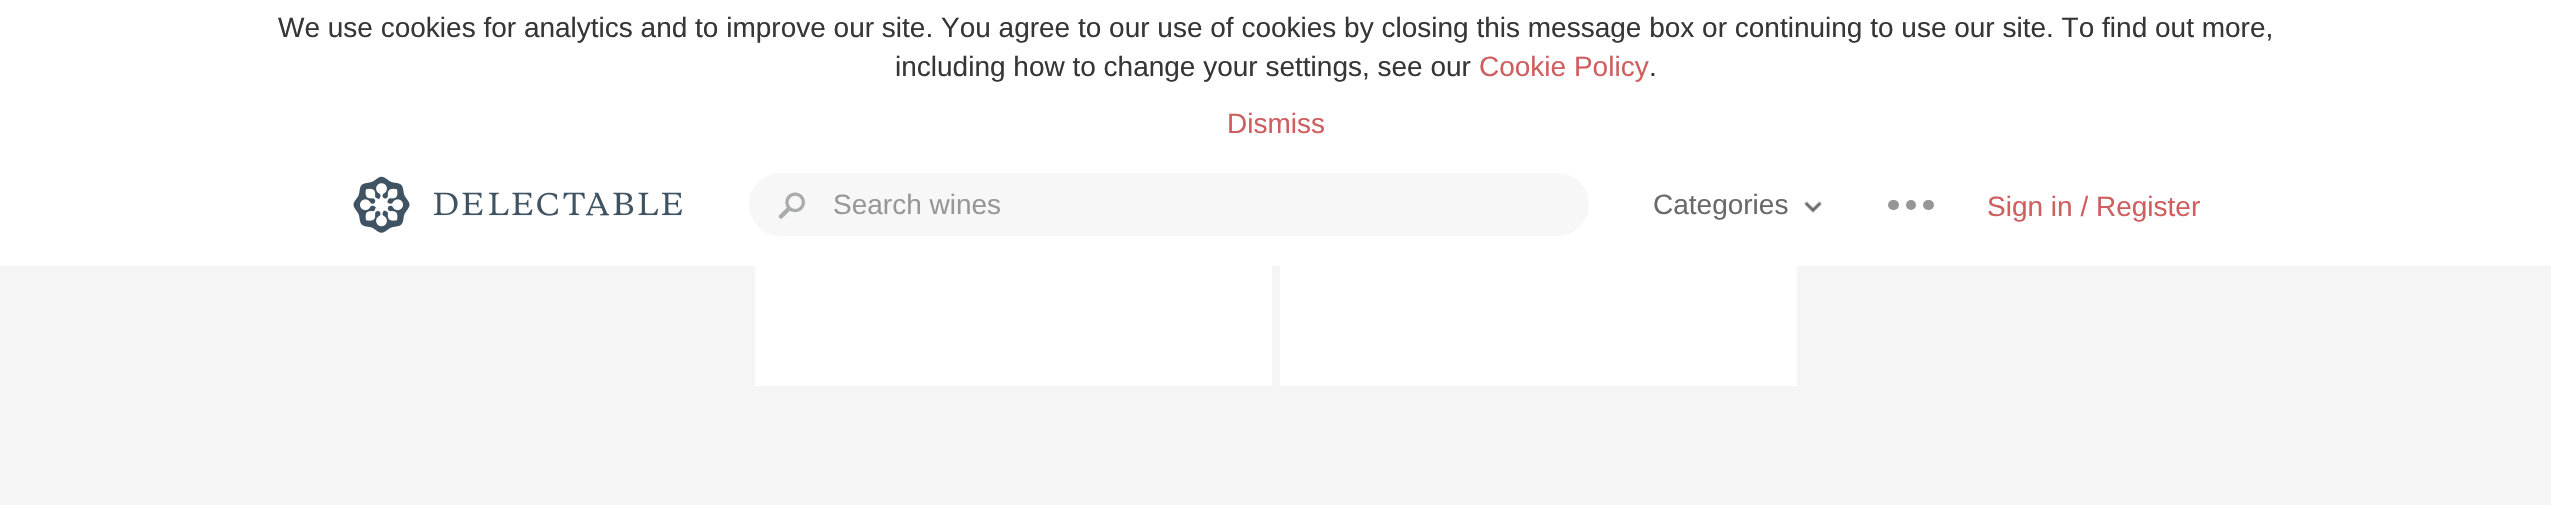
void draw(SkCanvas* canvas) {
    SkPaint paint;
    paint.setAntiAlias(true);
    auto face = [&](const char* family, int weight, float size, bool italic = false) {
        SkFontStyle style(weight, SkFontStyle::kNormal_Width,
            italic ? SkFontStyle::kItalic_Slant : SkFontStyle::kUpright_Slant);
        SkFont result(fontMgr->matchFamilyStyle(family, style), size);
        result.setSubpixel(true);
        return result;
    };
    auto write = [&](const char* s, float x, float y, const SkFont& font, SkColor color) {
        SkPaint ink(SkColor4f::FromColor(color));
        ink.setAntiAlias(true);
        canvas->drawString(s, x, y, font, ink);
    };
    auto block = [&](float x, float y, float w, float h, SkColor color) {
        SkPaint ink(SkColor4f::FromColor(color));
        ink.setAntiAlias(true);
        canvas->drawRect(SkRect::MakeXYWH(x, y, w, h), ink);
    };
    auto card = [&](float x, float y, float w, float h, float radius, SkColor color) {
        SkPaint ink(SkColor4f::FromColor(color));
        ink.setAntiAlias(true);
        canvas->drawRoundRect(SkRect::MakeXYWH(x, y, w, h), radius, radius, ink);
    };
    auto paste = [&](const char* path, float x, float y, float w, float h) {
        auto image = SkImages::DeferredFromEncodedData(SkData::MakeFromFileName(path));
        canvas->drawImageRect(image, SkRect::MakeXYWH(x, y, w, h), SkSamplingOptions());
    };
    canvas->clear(SkColorSetRGB(245, 245, 245));
    block(755, 0, 517, 386, SK_ColorWHITE);
    block(1280, 0, 517, 386, SK_ColorWHITE);
    block(0, 0, 2551, 266, SkColorSetARGB(247, 255, 255, 255));
    auto kFont1 = face("Liberation Sans", 400, 28);
    write("We use cookies for analytics and to improve our site. You agree to our use of cookies by closing this message box or continuing to use our site. To find out more,", 278, 37, kFont1, SkColorSetRGB(54, 54, 54));
    write("including how to change your settings, see our", 895, 76, kFont1, SkColorSetRGB(54, 54, 54));
    write("Cookie Policy", 1479, 76, kFont1, SkColorSetRGB(207, 94, 95));
    write(".", 1649, 76, kFont1, SkColorSetRGB(54, 54, 54));
    write("Dismiss", 1227, 133, kFont1, SkColorSetRGB(207, 94, 95));
    paste("pic1.png", 353, 176, 329, 57);
    card(749, 173, 840, 63, 31.5f, SkColorSetRGB(247, 247, 247));
    paste("pic2.png", 778, 192, 27, 27);
    write("Search wines", 833, 214, kFont1, SkColorSetRGB(151, 151, 151));
    write("Categories", 1653, 214, kFont1, SkColorSetRGB(105, 105, 105));
    paste("pic3.png", 1804, 201, 18, 12);
    paint.setColor(SkColorSetRGB(150, 150, 150));
    canvas->drawCircle(1911, 205, 5, paint);
    card(1888, 200, 11, 10, 5, SkColorSetRGB(150, 150, 150));
    card(1923, 200, 11, 10, 5, SkColorSetRGB(150, 150, 150));
    write("Sign in / Register", 1987, 216, kFont1, SkColorSetRGB(207, 94, 95));
}
